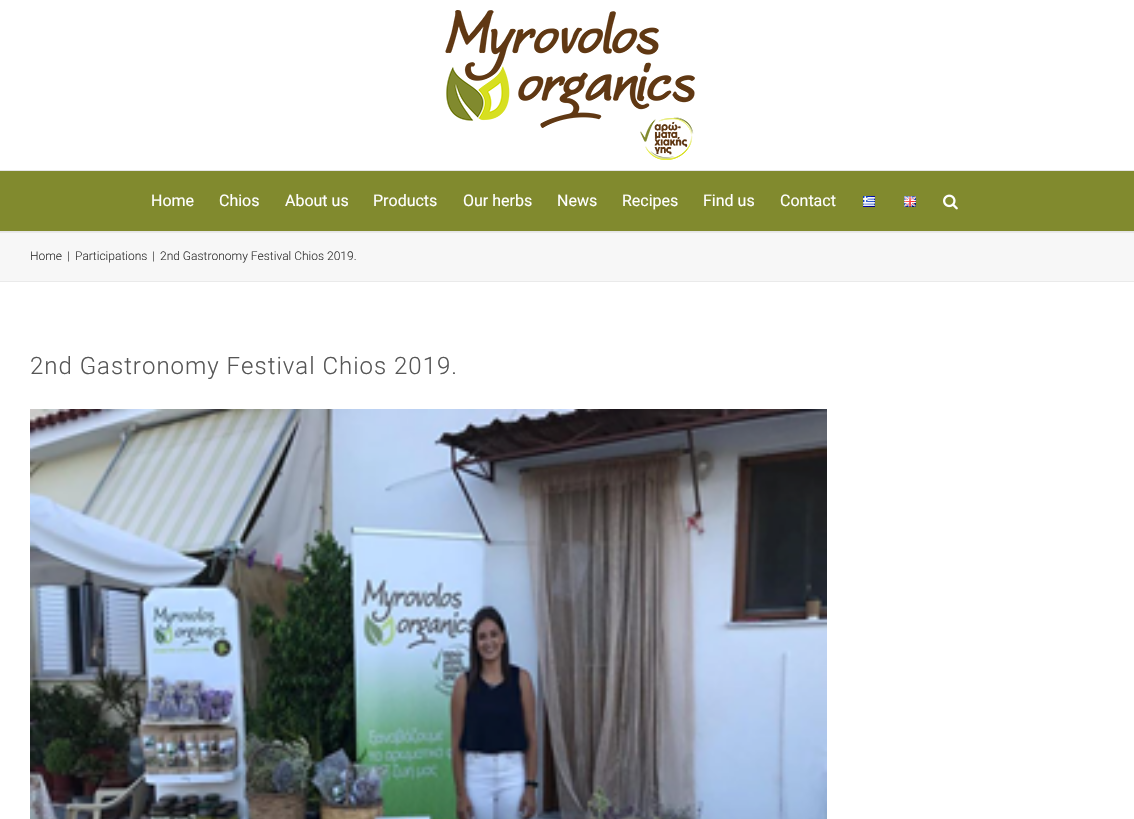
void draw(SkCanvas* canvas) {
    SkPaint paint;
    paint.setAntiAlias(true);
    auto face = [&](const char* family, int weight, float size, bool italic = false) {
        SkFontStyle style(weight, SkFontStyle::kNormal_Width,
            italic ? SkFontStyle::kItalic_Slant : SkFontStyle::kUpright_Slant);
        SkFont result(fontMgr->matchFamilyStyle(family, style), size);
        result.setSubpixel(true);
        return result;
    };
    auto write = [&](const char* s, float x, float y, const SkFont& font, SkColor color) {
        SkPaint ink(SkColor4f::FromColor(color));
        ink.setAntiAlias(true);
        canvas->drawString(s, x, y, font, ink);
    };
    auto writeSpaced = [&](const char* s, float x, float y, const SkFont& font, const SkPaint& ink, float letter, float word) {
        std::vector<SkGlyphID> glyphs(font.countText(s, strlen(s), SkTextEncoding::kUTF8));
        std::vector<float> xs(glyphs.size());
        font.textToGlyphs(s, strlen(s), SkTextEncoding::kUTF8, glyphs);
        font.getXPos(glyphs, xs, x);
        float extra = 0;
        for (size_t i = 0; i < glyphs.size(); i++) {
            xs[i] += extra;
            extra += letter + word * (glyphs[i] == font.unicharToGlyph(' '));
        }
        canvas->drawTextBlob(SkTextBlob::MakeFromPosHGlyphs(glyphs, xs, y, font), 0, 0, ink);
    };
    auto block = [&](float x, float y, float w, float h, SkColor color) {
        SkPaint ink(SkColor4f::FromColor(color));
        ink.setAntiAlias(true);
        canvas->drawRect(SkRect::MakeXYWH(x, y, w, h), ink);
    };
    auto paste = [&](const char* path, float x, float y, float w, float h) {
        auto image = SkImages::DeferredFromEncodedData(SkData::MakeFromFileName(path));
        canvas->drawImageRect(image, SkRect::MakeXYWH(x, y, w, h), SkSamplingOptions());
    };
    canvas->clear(SK_ColorWHITE);
    block(0, 170, 1134, 1, SkColorSetRGB(229, 229, 229));
    paste("pic1.png", 445, 10, 250, 150);
    block(0, 171, 1134, 60, SkColorSetRGB(129, 138, 46));
    block(0, 231, 1134, 1, SkColorSetRGB(229, 229, 229));
    auto kFont1 = face("Roboto", 400, 16);
    write("Home", 151, 206, kFont1, SK_ColorWHITE);
    write("Chios", 219, 206, kFont1, SK_ColorWHITE);
    write("About us", 285, 206, kFont1, SK_ColorWHITE);
    write("Products", 373, 206, kFont1, SK_ColorWHITE);
    write("Our herbs", 463, 206, kFont1, SK_ColorWHITE);
    write("News", 557, 206, kFont1, SK_ColorWHITE);
    write("Recipes", 622, 206, kFont1, SK_ColorWHITE);
    write("Find us", 703, 206, kFont1, SK_ColorWHITE);
    write("Contact", 780, 206, kFont1, SK_ColorWHITE);
    paste("pic2.png", 863, 196, 12, 11);
    paste("pic3.png", 904, 196, 12, 11);
    paste("pic4.png", 943, 194, 15, 16);
    block(0, 233, 1134, 48, SkColorSetRGB(247, 247, 247));
    block(0, 232, 1134, 1, SkColorSetRGB(234, 234, 234));
    block(0, 281, 1134, 1, SkColorSetRGB(234, 234, 234));
    auto kFont2 = face("Roboto", 300, 12);
    write("Home", 30, 260, kFont2, SkColorSetRGB(51, 51, 51));
    write("|", 67, 260, kFont2, SkColorSetRGB(51, 51, 51));
    write("Participations", 75, 260, kFont2, SkColorSetRGB(51, 51, 51));
    write("|", 152, 260, kFont2, SkColorSetRGB(51, 51, 51));
    write("2nd Gastronomy Festival Chios 2019.", 160, 260, kFont2, SkColorSetRGB(51, 51, 51));
    auto kFont3 = face("Roboto", 300, 24);
    paint.setColor(SkColorSetRGB(86, 86, 86));
    writeSpaced("2nd Gastronomy Festival Chios 2019.", 30, 374, kFont3, paint, 1, 0);
    paste("pic5.png", 30, 409, 797, 410);
}
